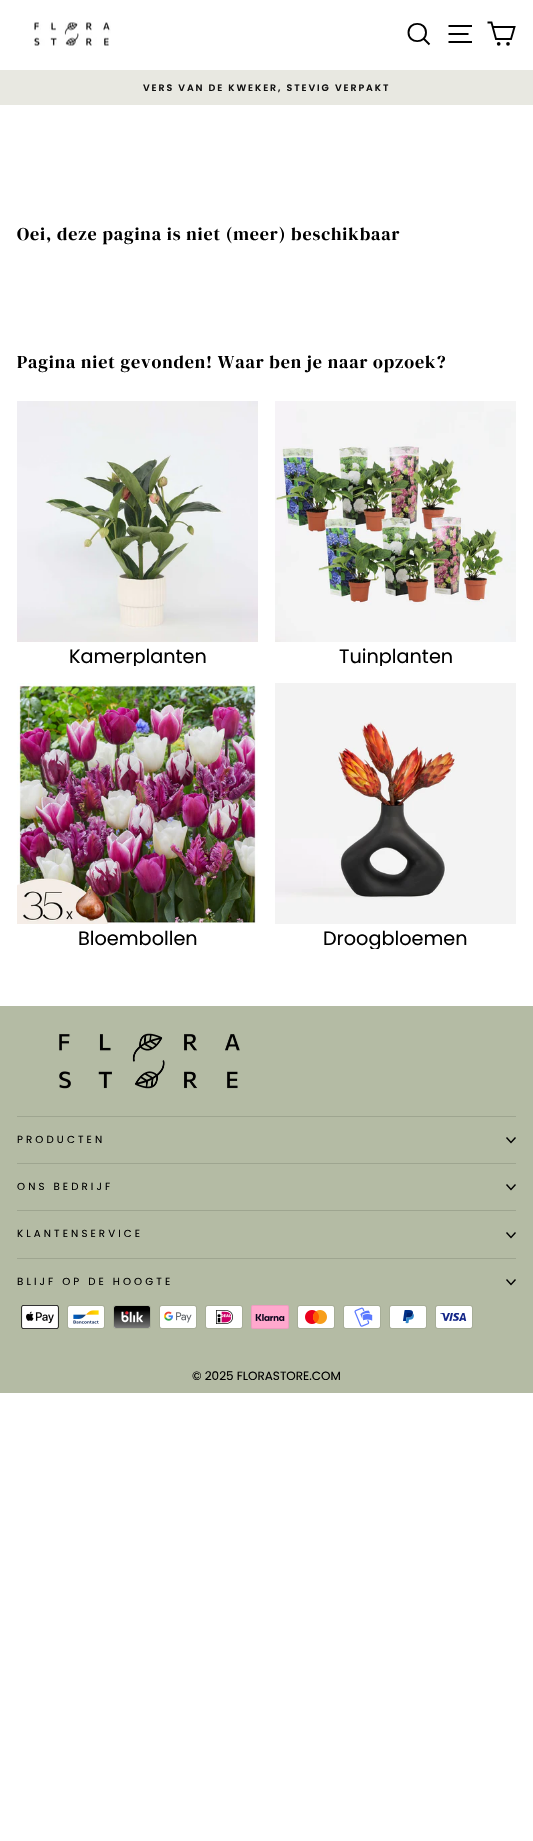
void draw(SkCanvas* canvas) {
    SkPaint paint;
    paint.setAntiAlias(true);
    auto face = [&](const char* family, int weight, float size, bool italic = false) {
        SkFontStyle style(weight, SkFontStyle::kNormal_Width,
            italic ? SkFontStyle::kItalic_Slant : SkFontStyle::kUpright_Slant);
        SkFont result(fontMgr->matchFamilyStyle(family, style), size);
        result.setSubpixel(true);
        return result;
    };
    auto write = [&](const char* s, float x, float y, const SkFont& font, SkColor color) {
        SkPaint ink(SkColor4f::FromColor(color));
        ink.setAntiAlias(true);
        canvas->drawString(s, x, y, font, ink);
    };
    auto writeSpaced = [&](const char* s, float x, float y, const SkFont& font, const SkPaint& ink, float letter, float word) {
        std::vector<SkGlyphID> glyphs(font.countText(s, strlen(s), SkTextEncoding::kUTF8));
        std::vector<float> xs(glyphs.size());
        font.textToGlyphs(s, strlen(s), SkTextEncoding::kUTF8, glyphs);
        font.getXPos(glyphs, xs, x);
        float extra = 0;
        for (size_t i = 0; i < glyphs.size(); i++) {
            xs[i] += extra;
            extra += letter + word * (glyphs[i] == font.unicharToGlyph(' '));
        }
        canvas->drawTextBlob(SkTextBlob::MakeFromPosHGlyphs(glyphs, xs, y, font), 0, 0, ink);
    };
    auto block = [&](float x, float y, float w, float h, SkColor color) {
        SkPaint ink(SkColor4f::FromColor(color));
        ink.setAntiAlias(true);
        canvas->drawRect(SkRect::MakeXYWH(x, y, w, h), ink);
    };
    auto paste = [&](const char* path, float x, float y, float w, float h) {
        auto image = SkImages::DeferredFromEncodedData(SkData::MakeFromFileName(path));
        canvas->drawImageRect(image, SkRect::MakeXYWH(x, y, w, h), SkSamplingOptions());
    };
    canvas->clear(SK_ColorWHITE);
    paste("pic1.png", 34, 21, 77, 25);
    paint.setStyle(SkPaint::kStroke_Style);
    paint.setStrokeWidth(1.9f);
    paint.setColor(SK_ColorBLACK);
    canvas->drawPath(SkPathBuilder().moveTo(426, 32.5f).cubicTo(426, 44, 408.5f, 44, 408.5f, 32.5f).cubicTo(408.5f, 21, 426, 21, 426, 32.5f).close().moveTo(429.5f, 44.5f).lineTo(423.5f, 38.5f).detach(), paint);
    canvas->drawPath(SkPathBuilder().moveTo(448.5f, 26).lineTo(472, 26).moveTo(448.5f, 34).lineTo(468.5f, 34).moveTo(448.5f, 42).lineTo(472, 42).detach(), paint);
    canvas->drawPath(SkPathBuilder().moveTo(492.5f, 27).lineTo(514.5f, 27).lineTo(511, 39).lineTo(496, 39).lineTo(491.5f, 22.5f).lineTo(487.5f, 22.5f).detach(), paint);
    canvas->drawCircle(498.7f, 43.8f, 0.9f, paint);
    canvas->drawCircle(508, 43.8f, 0.9f, paint);
    block(0, 70, 533, 35, SkColorSetRGB(232, 232, 225));
    auto kFont1 = face("Poppins", 600, 9.45f);
    paint.setStyle(SkPaint::kFill_Style);
    paint.setColor(SkColorSetRGB(17, 17, 17));
    writeSpaced("VERS VAN DE KWEKER, STEVIG VERPAKT", 143, 91, kFont1, paint, 1.9f, 0);
    auto kFont2 = face("DM Serif Display", 400, 18);
    paint.setColor(SK_ColorBLACK);
    writeSpaced("Oei, deze pagina is niet (meer) beschikbaar", 17, 240, kFont2, paint, 0.9f, 0);
    writeSpaced("Pagina niet gevonden! Waar ben je naar opzoek?", 17, 368, kFont2, paint, 0.9f, 0);
    paste("pic2.png", 17, 401, 241, 241);
    canvas->save();
    canvas->clipRect(SkRect::MakeXYWH(17, 401, 241, 265));
    auto kFont3 = face("Poppins", 400, 19.25f);
    write("Kamerplanten", 69, 663, kFont3, SK_ColorBLACK);
    canvas->restore();
    paste("pic3.png", 275, 401, 241, 241);
    canvas->save();
    canvas->clipRect(SkRect::MakeXYWH(275, 401, 241, 265));
    write("Tuinplanten", 339, 663, kFont3, SK_ColorBLACK);
    canvas->restore();
    paste("pic4.png", 17, 683, 241, 241);
    write("Bloembollen", 78, 945, kFont3, SK_ColorBLACK);
    paste("pic5.png", 275, 683, 241, 241);
    canvas->save();
    canvas->clipRect(SkRect::MakeXYWH(275, 683, 241, 266));
    write("Droogbloemen", 323, 945, kFont3, SK_ColorBLACK);
    canvas->restore();
    block(0, 1006, 533, 387, SkColorSetRGB(180, 187, 164));
    paste("pic6.png", 59, 1033, 181, 56);
    block(17, 1116, 499, 1, SkColorSetRGB(158, 165, 144));
    auto kFont4 = face("Poppins", 400, 10.25f);
    writeSpaced("PRODUCTEN", 17, 1143, kFont4, paint, 3.1f, 0);
    paint.setStyle(SkPaint::kStroke_Style);
    paint.setStrokeWidth(1.4f);
    canvas->drawPath(SkPathBuilder().moveTo(506.5f, 1137.5f).lineTo(511, 1142.5f).lineTo(515.5f, 1137.5f).detach(), paint);
    block(17, 1163, 499, 1, SkColorSetRGB(158, 165, 144));
    paint.setStyle(SkPaint::kFill_Style);
    writeSpaced("ONS BEDRIJF", 17, 1190, kFont4, paint, 3.1f, 0);
    paint.setStyle(SkPaint::kStroke_Style);
    canvas->drawPath(SkPathBuilder().moveTo(506.5f, 1184.5f).lineTo(511, 1189.5f).lineTo(515.5f, 1184.5f).detach(), paint);
    block(17, 1210, 499, 1, SkColorSetRGB(158, 165, 144));
    paint.setStyle(SkPaint::kFill_Style);
    writeSpaced("KLANTENSERVICE", 17, 1237, kFont4, paint, 3.1f, 0);
    paint.setStyle(SkPaint::kStroke_Style);
    canvas->drawPath(SkPathBuilder().moveTo(506.5f, 1232.5f).lineTo(511, 1237.5f).lineTo(515.5f, 1232.5f).detach(), paint);
    block(17, 1258, 499, 1, SkColorSetRGB(158, 165, 144));
    paint.setStyle(SkPaint::kFill_Style);
    writeSpaced("BLIJF OP DE HOOGTE", 17, 1285, kFont4, paint, 3.1f, 0);
    paint.setStyle(SkPaint::kStroke_Style);
    canvas->drawPath(SkPathBuilder().moveTo(506.5f, 1279.5f).lineTo(511, 1284.5f).lineTo(515.5f, 1279.5f).detach(), paint);
    paste("pic7.png", 21, 1305, 38, 24);
    paste("pic8.png", 67, 1305, 38, 24);
    paste("pic9.png", 113, 1305, 38, 24);
    paste("pic10.png", 159, 1305, 38, 24);
    paste("pic11.png", 205, 1305, 38, 24);
    paste("pic12.png", 251, 1305, 38, 24);
    paste("pic13.png", 297, 1305, 38, 24);
    paste("pic14.png", 343, 1305, 38, 24);
    paste("pic15.png", 389, 1305, 38, 24);
    paste("pic16.png", 435, 1305, 38, 24);
    auto kFont5 = face("Poppins", 400, 12);
    write("© 2025 FLORASTORE.COM", 192, 1380, kFont5, SK_ColorBLACK);
}
